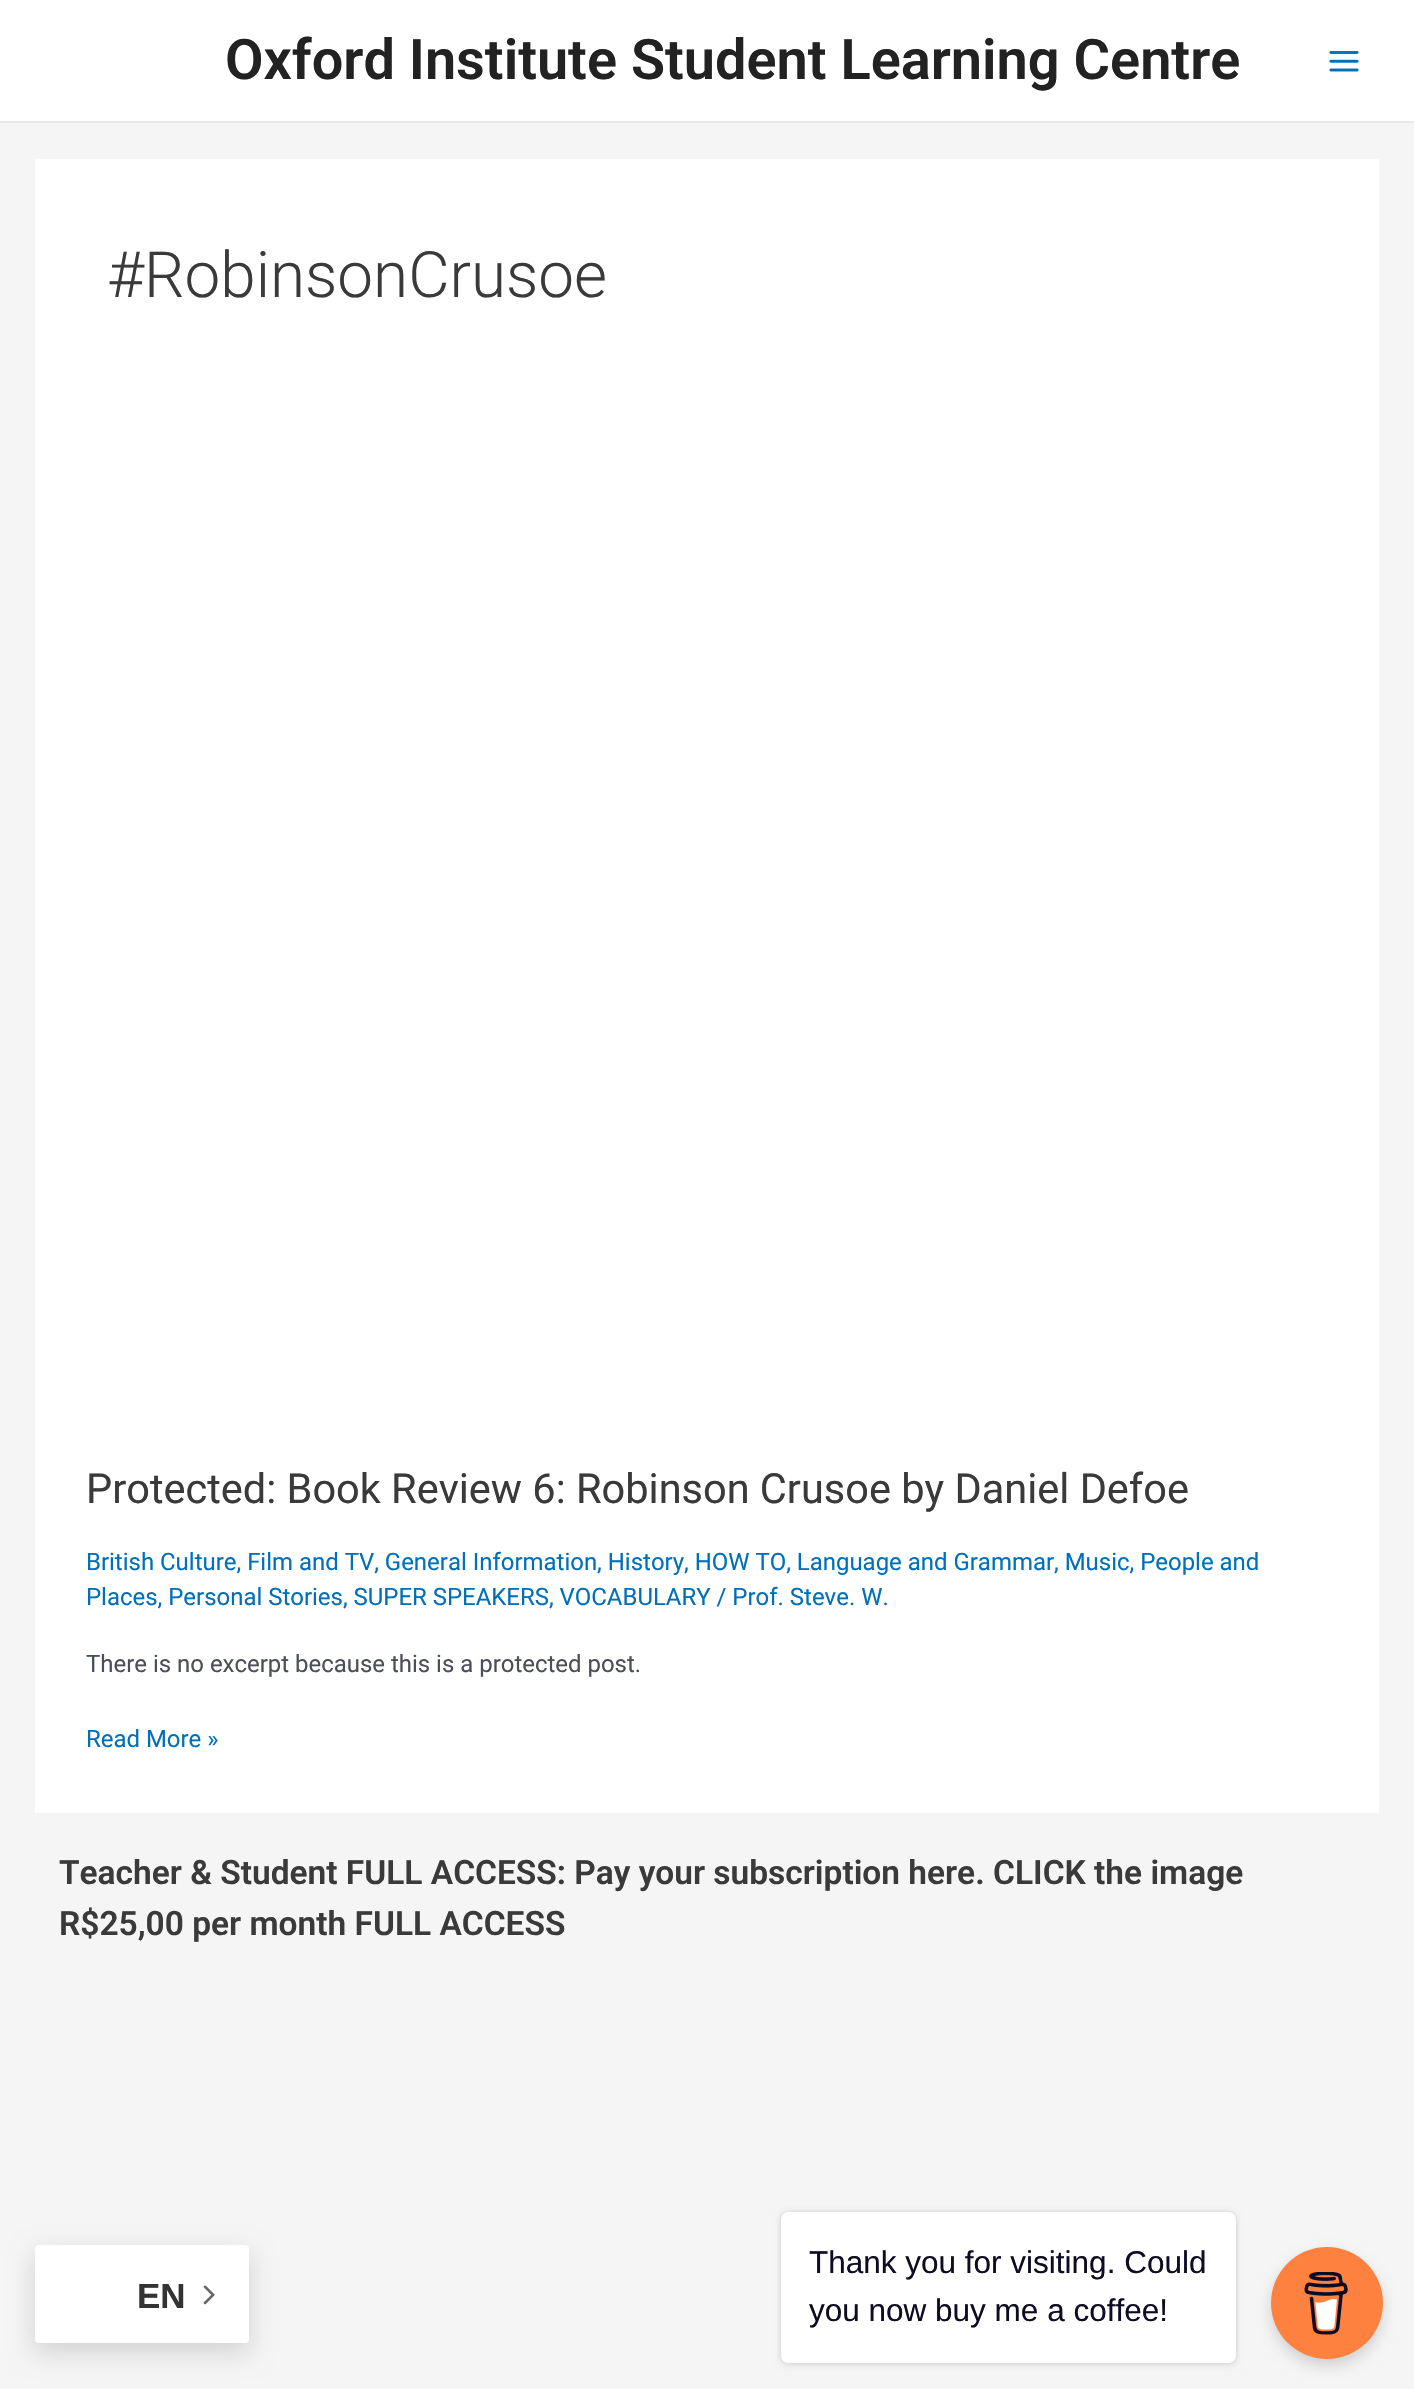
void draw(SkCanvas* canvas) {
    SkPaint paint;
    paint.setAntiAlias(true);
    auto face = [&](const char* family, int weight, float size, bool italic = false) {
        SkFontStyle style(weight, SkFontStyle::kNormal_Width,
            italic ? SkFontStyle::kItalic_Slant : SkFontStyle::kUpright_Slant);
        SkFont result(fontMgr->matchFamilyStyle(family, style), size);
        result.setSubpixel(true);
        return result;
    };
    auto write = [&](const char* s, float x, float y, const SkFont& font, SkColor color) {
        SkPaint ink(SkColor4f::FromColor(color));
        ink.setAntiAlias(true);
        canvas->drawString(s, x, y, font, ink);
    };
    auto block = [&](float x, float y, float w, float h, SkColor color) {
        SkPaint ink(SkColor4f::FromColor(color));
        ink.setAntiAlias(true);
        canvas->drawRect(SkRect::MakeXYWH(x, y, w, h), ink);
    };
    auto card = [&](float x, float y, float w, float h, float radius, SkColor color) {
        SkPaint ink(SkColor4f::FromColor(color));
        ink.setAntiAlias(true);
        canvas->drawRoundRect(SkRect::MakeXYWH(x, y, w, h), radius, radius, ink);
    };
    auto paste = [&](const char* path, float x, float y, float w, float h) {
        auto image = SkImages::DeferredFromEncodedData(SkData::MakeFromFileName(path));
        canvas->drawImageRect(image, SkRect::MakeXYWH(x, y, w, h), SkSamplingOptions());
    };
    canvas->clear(SkColorSetRGB(245, 245, 245));
    block(0, 0, 1414, 121, SK_ColorWHITE);
    block(0, 121, 1414, 2, SkColorSetRGB(234, 234, 234));
    auto kFont1 = face("Roboto", 600, 55.9f);
    write("Oxford Institute Student Learning Centre", 225, 79, kFont1, SkColorSetRGB(34, 34, 34));
    paste("pic1.png", 1329, 51, 30, 21);
    block(35, 159, 1344, 1654, SK_ColorWHITE);
    auto kFont2 = face("Roboto", 300, 63.75f);
    write("#RobinsonCrusoe", 107, 297, kFont2, SkColorSetRGB(58, 58, 58));
    auto kFont3 = face("Roboto", 400, 41.5f);
    write("Protected: Book Review 6: Robinson Crusoe by Daniel Defoe", 86, 1503, kFont3, SkColorSetRGB(58, 58, 58));
    auto kFont4 = face("Roboto", 400, 23.95f);
    write("British Culture, Film and TV, General Information, History, HOW TO, Language and Grammar, Music, People and", 86, 1570, kFont4, SkColorSetRGB(1, 112, 185));
    write("Places, Personal Stories, SUPER SPEAKERS, VOCABULARY / Prof. Steve. W.", 86, 1605, kFont4, SkColorSetRGB(1, 112, 185));
    write("There is no excerpt because this is a protected post.", 86, 1672, kFont4, SkColorSetRGB(75, 79, 88));
    write("Read More »", 86, 1747, kFont4, SkColorSetRGB(1, 112, 185));
    auto kFont5 = face("Roboto", 600, 33.5f);
    write("Teacher & Student FULL ACCESS: Pay your subscription here. CLICK the image", 59, 1884, kFont5, SkColorSetRGB(58, 58, 58));
    write("R$25,00 per month FULL ACCESS", 59, 1935, kFont5, SkColorSetRGB(58, 58, 58));
    paint.setColor(SkColorSetARGB(38, 0, 0, 0));
    paint.setMaskFilter(SkMaskFilter::MakeBlur(kNormal_SkBlurStyle, 13));
    canvas->drawRoundRect(SkRect::MakeXYWH(35, 2254, 214, 98), 4, 4, paint);
    paint.setMaskFilter(nullptr);
    card(35, 2245, 214, 98, 4, SK_ColorWHITE);
    auto kFont6 = face("Liberation Sans", 700, 35);
    write("EN", 137, 2308, kFont6, SkColorSetRGB(51, 51, 51));
    paste("pic2.png", 203, 2285, 12, 20);
    paint.setMaskFilter(SkMaskFilter::MakeBlur(kNormal_SkBlurStyle, 2));
    canvas->drawRoundRect(SkRect::MakeXYWH(781, 2212, 455, 151), 7, 7, paint);
    paint.setMaskFilter(nullptr);
    paint.setColor(SkColorSetARGB(13, 0, 0, 0));
    paint.setMaskFilter(SkMaskFilter::MakeBlur(kNormal_SkBlurStyle, 4.5f));
    canvas->drawRoundRect(SkRect::MakeXYWH(781, 2216, 455, 150), 7, 7, paint);
    paint.setMaskFilter(nullptr);
    card(781, 2212, 455, 151, 7, SK_ColorWHITE);
    auto kFont7 = face("Liberation Sans", 400, 31.5f);
    write("Thank you for visiting. Could", 809, 2273, kFont7, SkColorSetRGB(13, 12, 34));
    write("you now buy me a coffee!", 809, 2321, kFont7, SkColorSetRGB(13, 12, 34));
    paint.setColor(SkColorSetARGB(38, 0, 0, 0));
    paint.setMaskFilter(SkMaskFilter::MakeBlur(kNormal_SkBlurStyle, 7));
    canvas->drawRoundRect(SkRect::MakeXYWH(1271, 2254, 112, 112), 56, 56, paint);
    paint.setMaskFilter(nullptr);
    paint.setColor(SkColorSetRGB(255, 129, 63));
    canvas->drawCircle(1327, 2303, 56, paint);
    paste("pic3.png", 1304, 2272, 44, 63);
}
